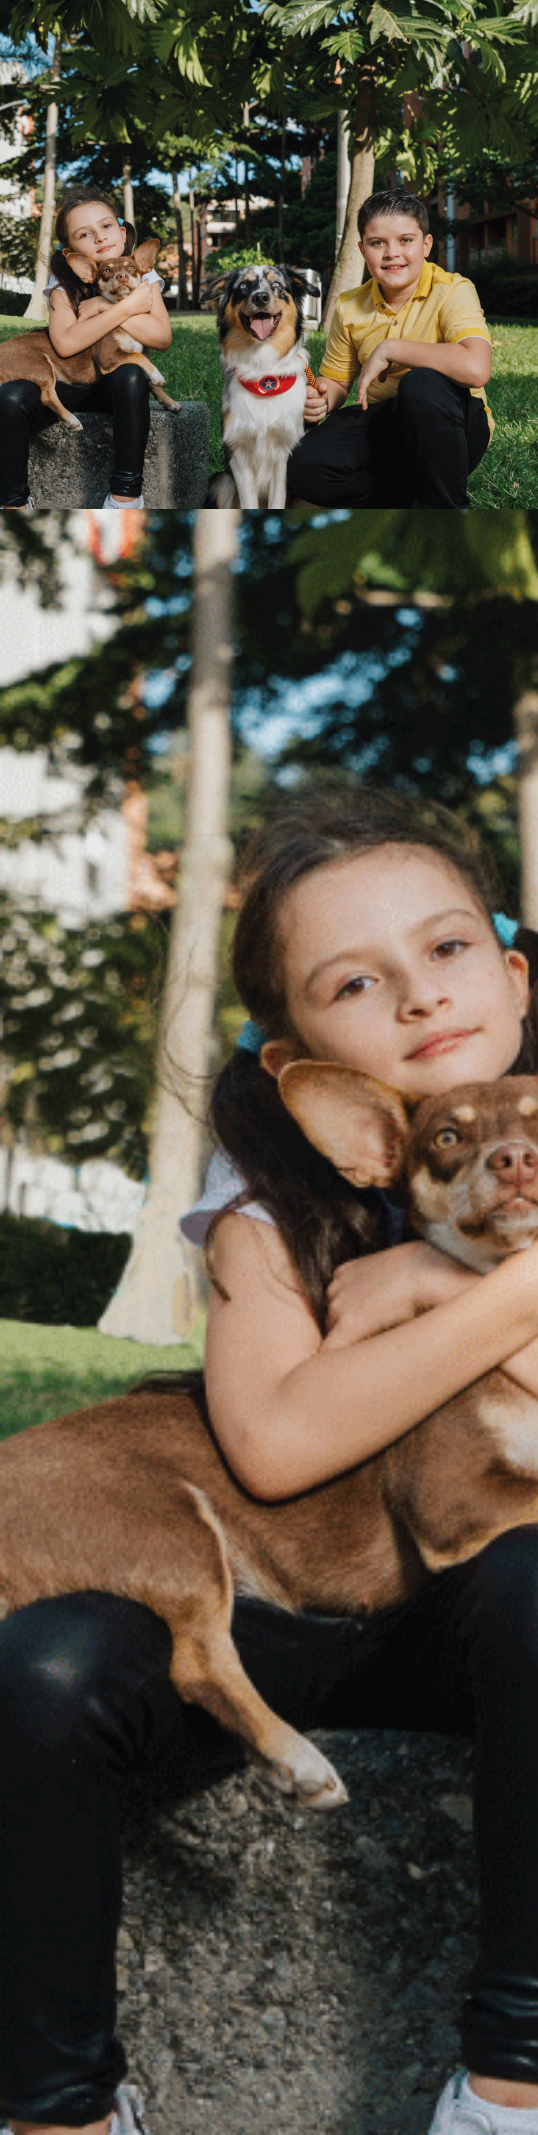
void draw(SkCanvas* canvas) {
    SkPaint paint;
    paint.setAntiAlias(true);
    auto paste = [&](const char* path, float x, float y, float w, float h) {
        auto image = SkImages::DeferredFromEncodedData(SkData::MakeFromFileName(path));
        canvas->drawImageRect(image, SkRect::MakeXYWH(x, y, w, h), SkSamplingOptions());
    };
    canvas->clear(SK_ColorWHITE);
    paste("pic1.png", 0, 509, 538, 1626);
    paste("pic2.png", 0, 0, 538, 509);
}
